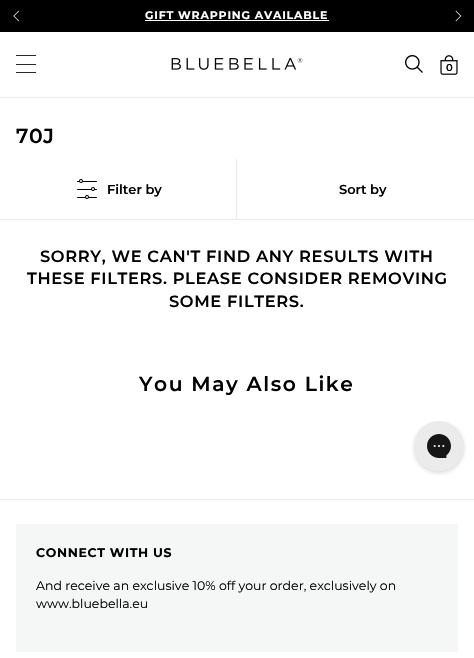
void draw(SkCanvas* canvas) {
    SkPaint paint;
    paint.setAntiAlias(true);
    auto face = [&](const char* family, int weight, float size, bool italic = false) {
        SkFontStyle style(weight, SkFontStyle::kNormal_Width,
            italic ? SkFontStyle::kItalic_Slant : SkFontStyle::kUpright_Slant);
        SkFont result(fontMgr->matchFamilyStyle(family, style), size);
        result.setSubpixel(true);
        return result;
    };
    auto write = [&](const char* s, float x, float y, const SkFont& font, SkColor color) {
        SkPaint ink(SkColor4f::FromColor(color));
        ink.setAntiAlias(true);
        canvas->drawString(s, x, y, font, ink);
    };
    auto writeSpaced = [&](const char* s, float x, float y, const SkFont& font, const SkPaint& ink, float letter, float word) {
        std::vector<SkGlyphID> glyphs(font.countText(s, strlen(s), SkTextEncoding::kUTF8));
        std::vector<float> xs(glyphs.size());
        font.textToGlyphs(s, strlen(s), SkTextEncoding::kUTF8, glyphs);
        font.getXPos(glyphs, xs, x);
        float extra = 0;
        for (size_t i = 0; i < glyphs.size(); i++) {
            xs[i] += extra;
            extra += letter + word * (glyphs[i] == font.unicharToGlyph(' '));
        }
        canvas->drawTextBlob(SkTextBlob::MakeFromPosHGlyphs(glyphs, xs, y, font), 0, 0, ink);
    };
    auto block = [&](float x, float y, float w, float h, SkColor color) {
        SkPaint ink(SkColor4f::FromColor(color));
        ink.setAntiAlias(true);
        canvas->drawRect(SkRect::MakeXYWH(x, y, w, h), ink);
    };
    auto paste = [&](const char* path, float x, float y, float w, float h) {
        auto image = SkImages::DeferredFromEncodedData(SkData::MakeFromFileName(path));
        canvas->drawImageRect(image, SkRect::MakeXYWH(x, y, w, h), SkSamplingOptions());
    };
    canvas->clear(SK_ColorWHITE);
    block(0, 0, 474, 32, SK_ColorBLACK);
    paste("pic1.png", 13, 10, 7, 12);
    auto kFont1 = face("Montserrat", 700, 11);
    paint.setColor(SK_ColorWHITE);
    writeSpaced("GIFT WRAPPING AVAILABLE", 145, 19, kFont1, paint, 0.8f, 0);
    block(145, 20, 184, 1, SK_ColorWHITE);
    paste("pic2.png", 455, 10, 7, 12);
    block(0, 97, 474, 1, SkColorSetRGB(234, 234, 234));
    block(16, 55, 20, 1, SkColorSetRGB(43, 43, 43));
    block(16, 64, 20, 1, SkColorSetRGB(43, 43, 43));
    block(16, 72, 20, 1, SkColorSetRGB(43, 43, 43));
    paste("pic3.png", 171, 58, 132, 12);
    paste("pic4.png", 405, 55, 18, 18);
    paste("pic5.png", 440, 55, 18, 20);
    auto kFont2 = face("Montserrat", 600, 10);
    write("0", 446, 71, kFont2, SK_ColorBLACK);
    auto kFont3 = face("Montserrat", 600, 20.25f);
    paint.setColor(SK_ColorBLACK);
    writeSpaced("70J", 16, 143, kFont3, paint, 0.65f, 0);
    block(0, 219, 474, 1, SkColorSetRGB(234, 234, 234));
    block(236, 159, 1, 60, SkColorSetRGB(234, 234, 234));
    paste("pic6.png", 77, 179, 20, 20);
    auto kFont4 = face("Montserrat", 600, 13);
    write("Filter by", 107, 194, kFont4, SK_ColorBLACK);
    write("Sort by", 339, 194, kFont4, SK_ColorBLACK);
    auto kFont5 = face("Montserrat", 600, 16.25f);
    writeSpaced("SORRY, WE CAN'T FIND ANY RESULTS WITH", 40, 262, kFont5, paint, 0.65f, 0);
    writeSpaced("THESE FILTERS. PLEASE CONSIDER REMOVING", 27, 284, kFont5, paint, 0.65f, 0);
    writeSpaced("SOME FILTERS.", 169, 307, kFont5, paint, 0.65f, 0);
    writeSpaced("You May Also Like", 139, 391, kFont3, paint, 1.6f, 0);
    paste("pic7.png", 412, 421, 54, 54);
    block(0, 499, 474, 1, SkColorSetRGB(234, 234, 234));
    block(16, 524, 442, 128, SkColorSetRGB(245, 246, 246));
    auto kFont6 = face("Montserrat", 700, 12.5f);
    writeSpaced("CONNECT WITH US", 36, 557, kFont6, paint, 0.65f, 0);
    auto kFont7 = face("Montserrat", 400, 12.5f);
    write("And receive an exclusive 10% off your order, exclusively on", 36, 590, kFont7, SK_ColorBLACK);
    write("www.bluebella.eu", 36, 608, kFont7, SK_ColorBLACK);
}
